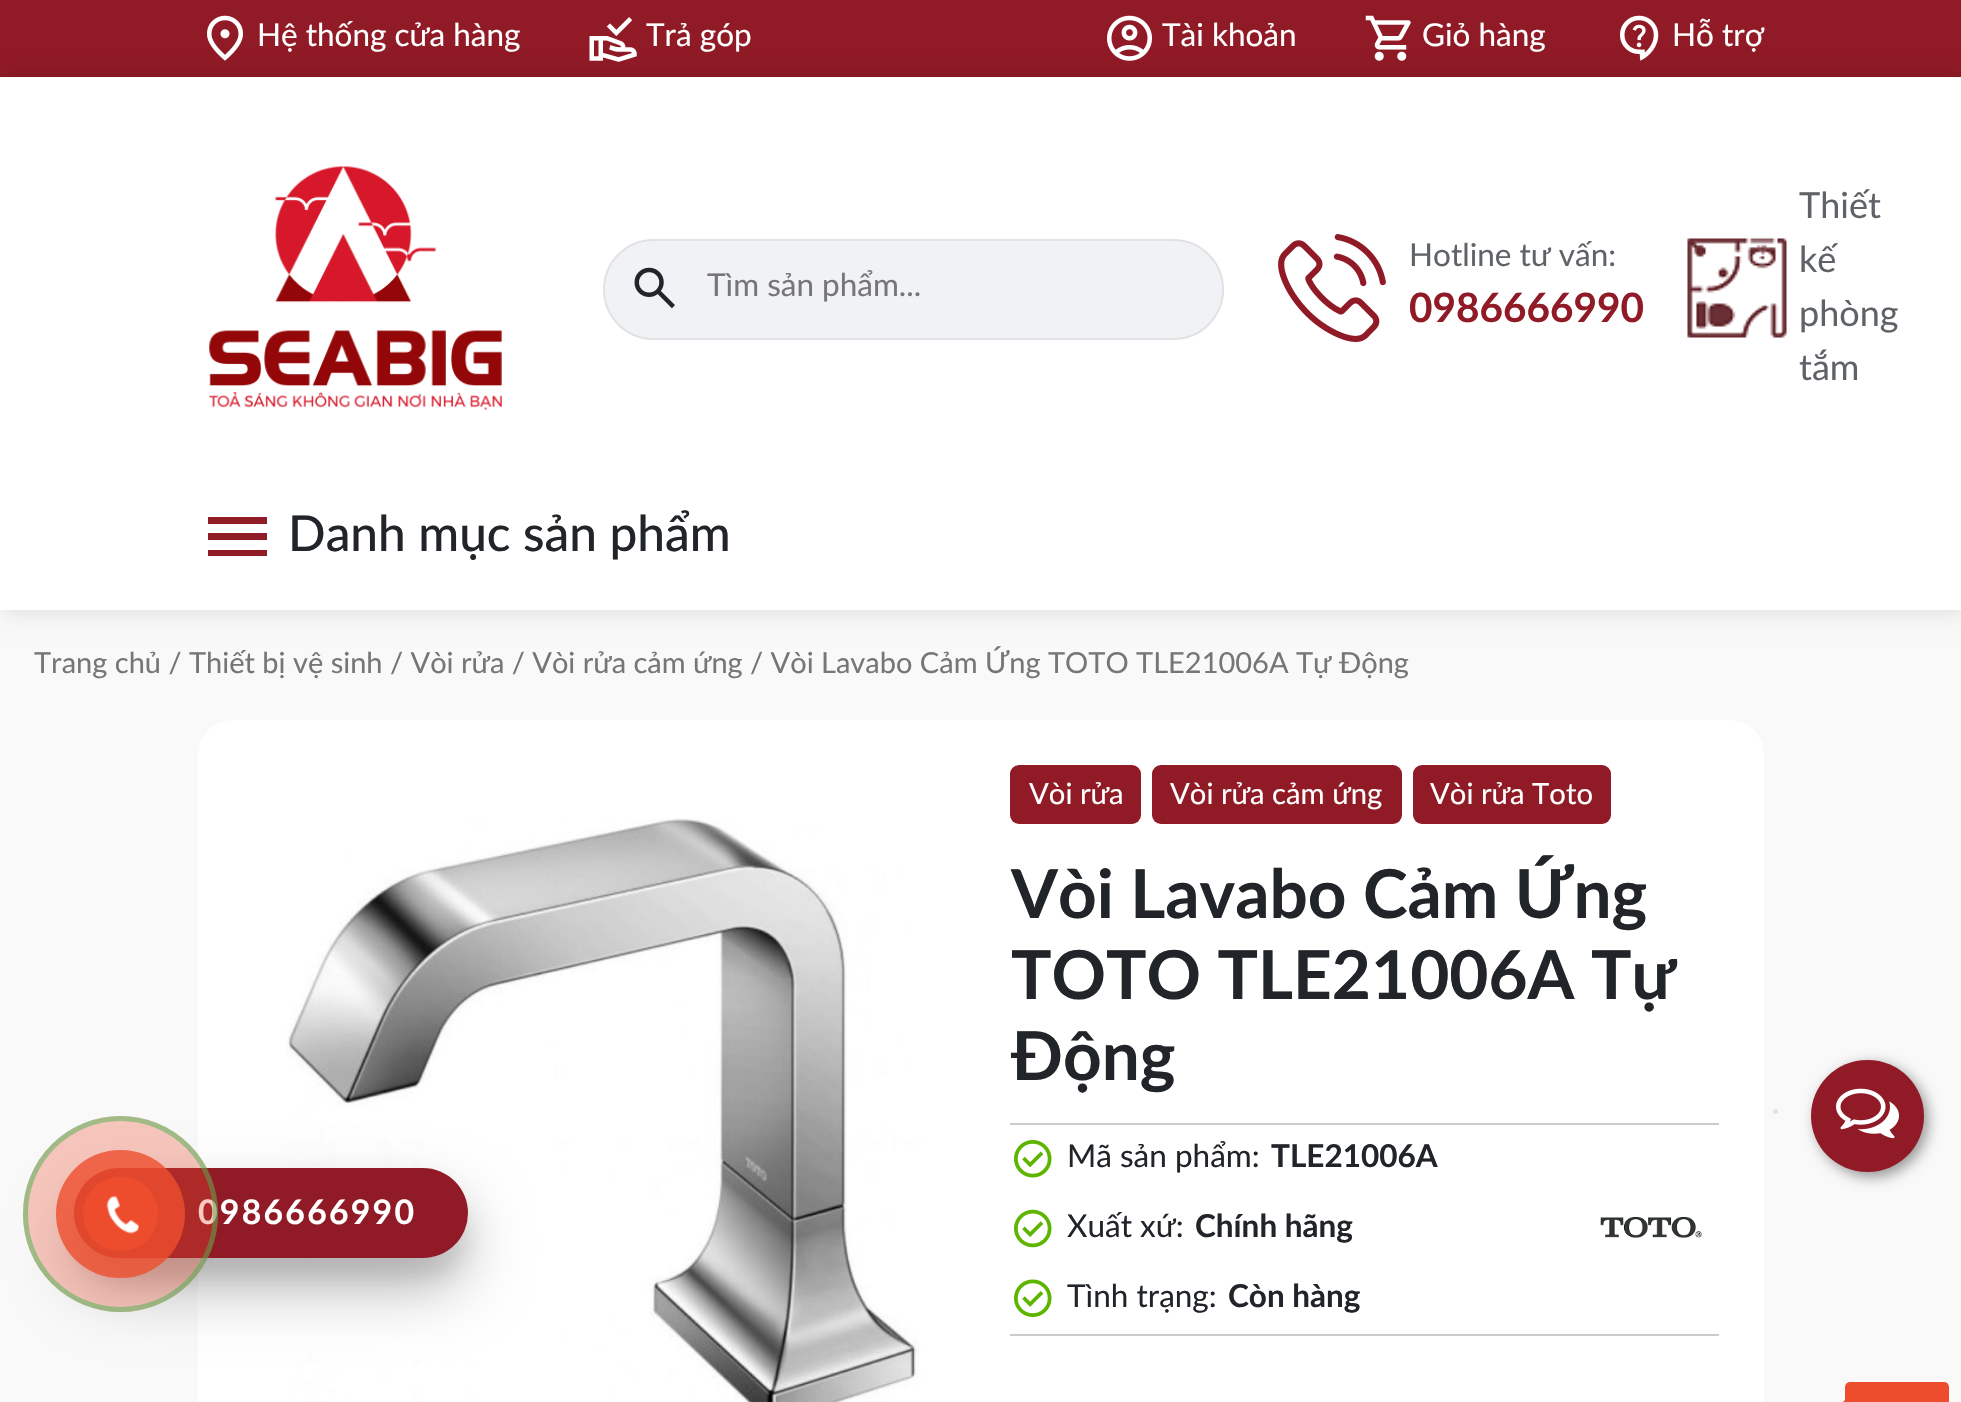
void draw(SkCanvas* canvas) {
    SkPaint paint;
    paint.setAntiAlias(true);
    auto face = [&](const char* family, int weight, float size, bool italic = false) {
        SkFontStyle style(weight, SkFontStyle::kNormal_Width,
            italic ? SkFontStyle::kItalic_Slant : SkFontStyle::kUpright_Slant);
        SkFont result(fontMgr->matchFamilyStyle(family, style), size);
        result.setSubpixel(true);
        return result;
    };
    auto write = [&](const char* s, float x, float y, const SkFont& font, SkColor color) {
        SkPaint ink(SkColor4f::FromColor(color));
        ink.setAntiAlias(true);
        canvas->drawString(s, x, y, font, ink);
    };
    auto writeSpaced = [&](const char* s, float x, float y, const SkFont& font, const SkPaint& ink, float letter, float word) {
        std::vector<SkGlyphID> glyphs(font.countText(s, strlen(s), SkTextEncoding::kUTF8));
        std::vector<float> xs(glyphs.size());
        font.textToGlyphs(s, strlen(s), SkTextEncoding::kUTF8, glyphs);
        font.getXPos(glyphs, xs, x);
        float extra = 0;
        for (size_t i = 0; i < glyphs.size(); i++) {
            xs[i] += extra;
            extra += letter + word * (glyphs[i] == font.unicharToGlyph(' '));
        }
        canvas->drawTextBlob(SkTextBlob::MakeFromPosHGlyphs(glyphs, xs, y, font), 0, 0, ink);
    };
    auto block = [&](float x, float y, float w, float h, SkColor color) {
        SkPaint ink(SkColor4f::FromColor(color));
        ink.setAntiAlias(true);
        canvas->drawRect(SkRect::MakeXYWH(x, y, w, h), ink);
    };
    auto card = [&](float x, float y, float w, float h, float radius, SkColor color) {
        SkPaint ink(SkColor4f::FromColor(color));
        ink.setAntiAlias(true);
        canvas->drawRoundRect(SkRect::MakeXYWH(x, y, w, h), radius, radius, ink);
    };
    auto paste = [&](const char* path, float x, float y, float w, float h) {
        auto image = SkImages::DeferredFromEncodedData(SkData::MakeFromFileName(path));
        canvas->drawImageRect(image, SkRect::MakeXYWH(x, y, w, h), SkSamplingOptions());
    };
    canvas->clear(SK_ColorWHITE);
    block(0, 0, 1961, 77, SkColorSetRGB(144, 26, 38));
    paint.setColor(SkColorSetARGB(38, 0, 0, 0));
    paint.setMaskFilter(SkMaskFilter::MakeBlur(kNormal_SkBlurStyle, 11));
    canvas->drawRect(SkRect::MakeXYWH(2, 79, 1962, 533), paint);
    paint.setMaskFilter(nullptr);
    paste("pic1.png", 207, 15, 36, 46);
    auto kFont1 = face("Lato", 400, 31.5f);
    write("Hệ thống cửa hàng", 257, 46, kFont1, SK_ColorWHITE);
    paste("pic2.png", 589, 17, 48, 45);
    write("Trả góp", 646, 46, kFont1, SK_ColorWHITE);
    paste("pic3.png", 1107, 15, 45, 46);
    write("Tài khoản", 1162, 46, kFont1, SK_ColorWHITE);
    paste("pic4.png", 1365, 15, 46, 46);
    write("Giỏ hàng", 1422, 46, kFont1, SK_ColorWHITE);
    paste("pic5.png", 1620, 15, 39, 46);
    write("Hỗ trợ", 1672, 46, kFont1, SK_ColorWHITE);
    block(0, 77, 1961, 533, SK_ColorWHITE);
    paste("pic6.png", 209, 166, 293, 244);
    card(603, 239, 621, 101, 50.5f, SkColorSetRGB(240, 242, 245));
    paint.setStyle(SkPaint::kStroke_Style);
    paint.setStrokeWidth(2);
    paint.setColor(SkColorSetARGB(112, 204, 204, 204));
    canvas->drawRoundRect(SkRect::MakeXYWH(604, 240, 619, 99), 49.5f, 49.5f, paint);
    paste("pic7.png", 634, 267, 41, 42);
    write("Tìm sản phẩm...", 707, 296, kFont1, SkColorSetRGB(118, 118, 118));
    paste("pic8.png", 1278, 234, 108, 108);
    write("Hotline tư vấn:", 1409, 266, kFont1, SkColorSetRGB(95, 99, 104));
    auto kFont2 = face("Lato", 700, 40.5f);
    write("0986666990", 1409, 322, kFont2, SkColorSetRGB(144, 26, 38));
    paste("pic9.png", 1687, 238, 100, 100);
    auto kFont3 = face("Lato", 400, 36);
    write("Thiết", 1799, 218, kFont3, SkColorSetRGB(95, 99, 104));
    write("kế", 1799, 272, kFont3, SkColorSetRGB(95, 99, 104));
    write("phòng", 1799, 326, kFont3, SkColorSetRGB(95, 99, 104));
    write("tắm", 1799, 380, kFont3, SkColorSetRGB(95, 99, 104));
    paint.setStyle(SkPaint::kFill_Style);
    paint.setColor(SkColorSetRGB(144, 26, 38));
    canvas->drawPath(SkPathBuilder().moveTo(208, 556).lineTo(208, 550).lineTo(267, 550).lineTo(267, 556).close().moveTo(208, 540).lineTo(208, 533).lineTo(267, 533).lineTo(267, 540).close().moveTo(208, 524).lineTo(208, 517).lineTo(267, 517).lineTo(267, 524).close().detach(), paint);
    auto kFont4 = face("Lato", 500, 49.5f);
    write("Danh mục sản phẩm", 288, 551, kFont4, SkColorSetRGB(33, 37, 41));
    block(0, 610, 1961, 792, SkColorSetARGB(71, 232, 232, 232));
    auto kFont5 = face("Lato", 400, 29);
    write("Trang chủ / Thiết bị vệ sinh / Vòi rửa / Vòi rửa cảm ứng / Vòi Lavabo Cảm Ứng TOTO TLE21006A Tự Động", 34, 673, kFont5, SkColorSetRGB(118, 118, 118));
    card(198, 720, 1566, 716, 34, SK_ColorWHITE);
    paste("pic10.png", 287, 818, 635, 584);
    card(1010, 765, 131, 59, 9, SkColorSetRGB(144, 26, 38));
    auto kFont6 = face("Lato", 400, 29.25f);
    write("Vòi rửa", 1029, 804, kFont6, SK_ColorWHITE);
    card(1152, 765, 250, 59, 9, SkColorSetRGB(144, 26, 38));
    write("Vòi rửa cảm ứng", 1170, 804, kFont6, SK_ColorWHITE);
    card(1413, 765, 198, 59, 9, SkColorSetRGB(144, 26, 38));
    write("Vòi rửa Toto", 1430, 804, kFont6, SK_ColorWHITE);
    auto kFont7 = face("Lato", 700, 67.5f);
    write("Vòi Lavabo Cảm Ứng", 1011, 918, kFont7, SkColorSetRGB(33, 37, 41));
    write("TOTO TLE21006A Tự", 1011, 999, kFont7, SkColorSetRGB(33, 37, 41));
    write("Động", 1011, 1080, kFont7, SkColorSetRGB(33, 37, 41));
    block(1010, 1123, 709, 2, SkColorSetRGB(204, 204, 204));
    block(1010, 1334, 709, 2, SkColorSetRGB(204, 204, 204));
    paste("pic11.png", 1014, 1140, 38, 38);
    write("Mã sản phẩm:", 1067, 1167, kFont1, SkColorSetRGB(33, 37, 41));
    auto kFont8 = face("Lato", 700, 31.5f);
    write("TLE21006A", 1271, 1167, kFont8, SkColorSetRGB(33, 37, 41));
    paste("pic12.png", 1014, 1209, 38, 39);
    write("Xuất xứ:", 1067, 1237, kFont1, SkColorSetRGB(33, 37, 41));
    write("Chính hãng", 1195, 1237, kFont8, SkColorSetRGB(33, 37, 41));
    paste("pic13.png", 1014, 1279, 38, 38);
    write("Tình trạng:", 1067, 1307, kFont1, SkColorSetRGB(33, 37, 41));
    write("Còn hàng", 1228, 1307, kFont8, SkColorSetRGB(33, 37, 41));
    paste("pic14.png", 1600, 1216, 102, 22);
    card(1845, 1382, 104, 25, 5, SkColorSetRGB(238, 77, 45));
    paint.setColor(SkColorSetRGB(238, 77, 45));
    canvas->drawPath(SkPathBuilder().moveTo(1846, 1399).lineTo(1863.5f, 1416.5f).lineTo(1846, 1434).lineTo(1828.5f, 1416.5f).close().detach(), paint);
    paint.setColor(SkColorSetRGB(226, 226, 226));
    canvas->drawCircle(1775.5f, 1111.5f, 2.5f, paint);
    paint.setColor(SkColorSetARGB(102, 0, 0, 0));
    paint.setMaskFilter(SkMaskFilter::MakeBlur(kNormal_SkBlurStyle, 7));
    canvas->drawRoundRect(SkRect::MakeXYWH(1816, 1064, 112, 113), 56, 56, paint);
    paint.setMaskFilter(nullptr);
    card(1811, 1060, 113, 112, 56, SkColorSetRGB(144, 26, 38));
    paste("pic15.png", 1836, 1088, 63, 51);
    paint.setColor(SkColorSetARGB(26, 0, 0, 0));
    paint.setMaskFilter(SkMaskFilter::MakeBlur(kNormal_SkBlurStyle, 11));
    canvas->drawRoundRect(SkRect::MakeXYWH(74, 1190, 394, 90), 45, 45, paint);
    paint.setMaskFilter(nullptr);
    paint.setColor(SkColorSetARGB(64, 0, 0, 0));
    paint.setMaskFilter(SkMaskFilter::MakeBlur(kNormal_SkBlurStyle, 31.5f));
    canvas->drawRoundRect(SkRect::MakeXYWH(74, 1199, 394, 90), 45, 45, paint);
    paint.setMaskFilter(nullptr);
    card(74, 1168, 394, 90, 45, SkColorSetRGB(144, 26, 38));
    auto kFont9 = face("Lato", 700, 33.75f);
    paint.setColor(SK_ColorWHITE);
    writeSpaced("0986666990", 198, 1224, kFont9, paint, 2.25f, 0);
    card(23, 1116, 195, 196, 97.5f, SkColorSetARGB(77, 238, 77, 45));
    paint.setStyle(SkPaint::kStroke_Style);
    paint.setStrokeWidth(5);
    paint.setColor(SkColorSetARGB(128, 76, 175, 80));
    canvas->drawRoundRect(SkRect::MakeXYWH(25.5f, 1118.5f, 190, 191), 95, 95, paint);
    card(56, 1150, 129, 128, 64, SkColorSetARGB(204, 238, 77, 45));
    card(83, 1177, 75, 74, 37, SkColorSetRGB(238, 77, 45));
    paste("pic16.png", 106, 1195, 33, 39);
}
